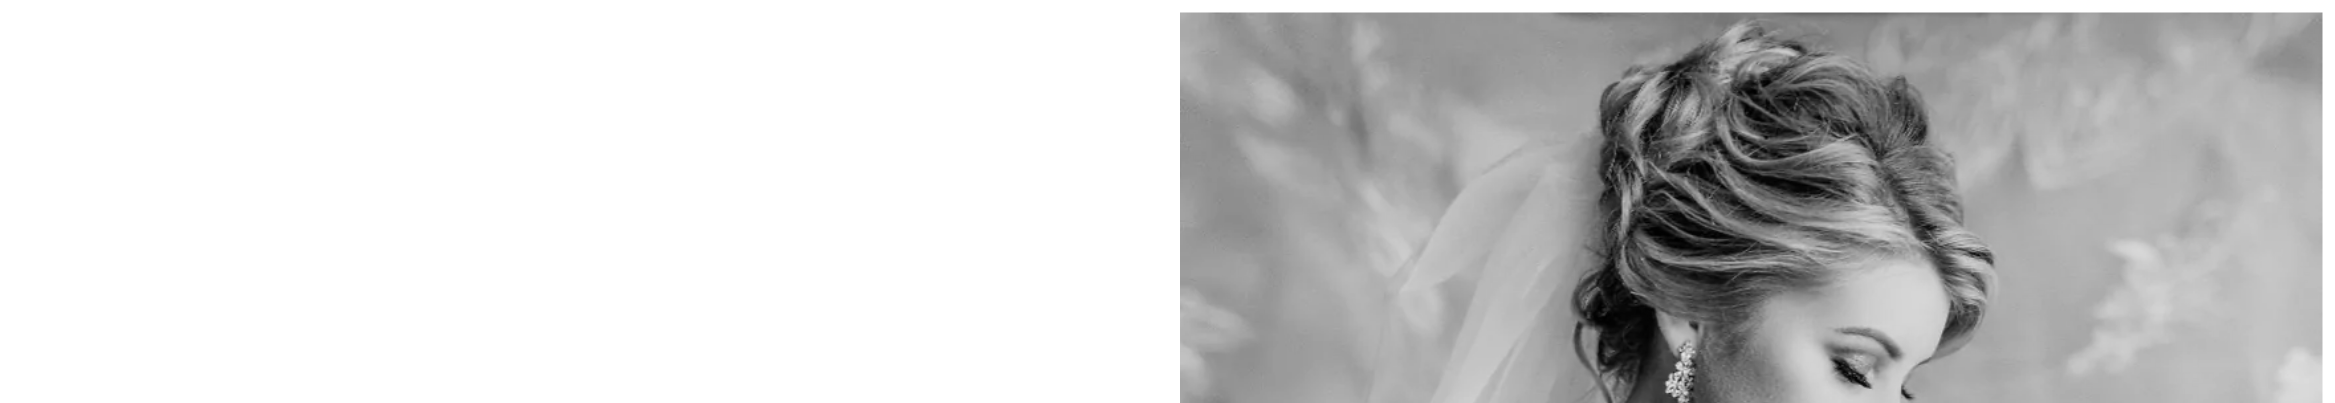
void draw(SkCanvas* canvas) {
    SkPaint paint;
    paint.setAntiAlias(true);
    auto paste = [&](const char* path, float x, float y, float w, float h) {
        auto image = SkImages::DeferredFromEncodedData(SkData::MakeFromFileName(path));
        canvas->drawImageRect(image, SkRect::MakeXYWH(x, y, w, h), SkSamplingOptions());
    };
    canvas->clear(SK_ColorWHITE);
    paste("pic1.png", 1180, 12, 1143, 391);
}
